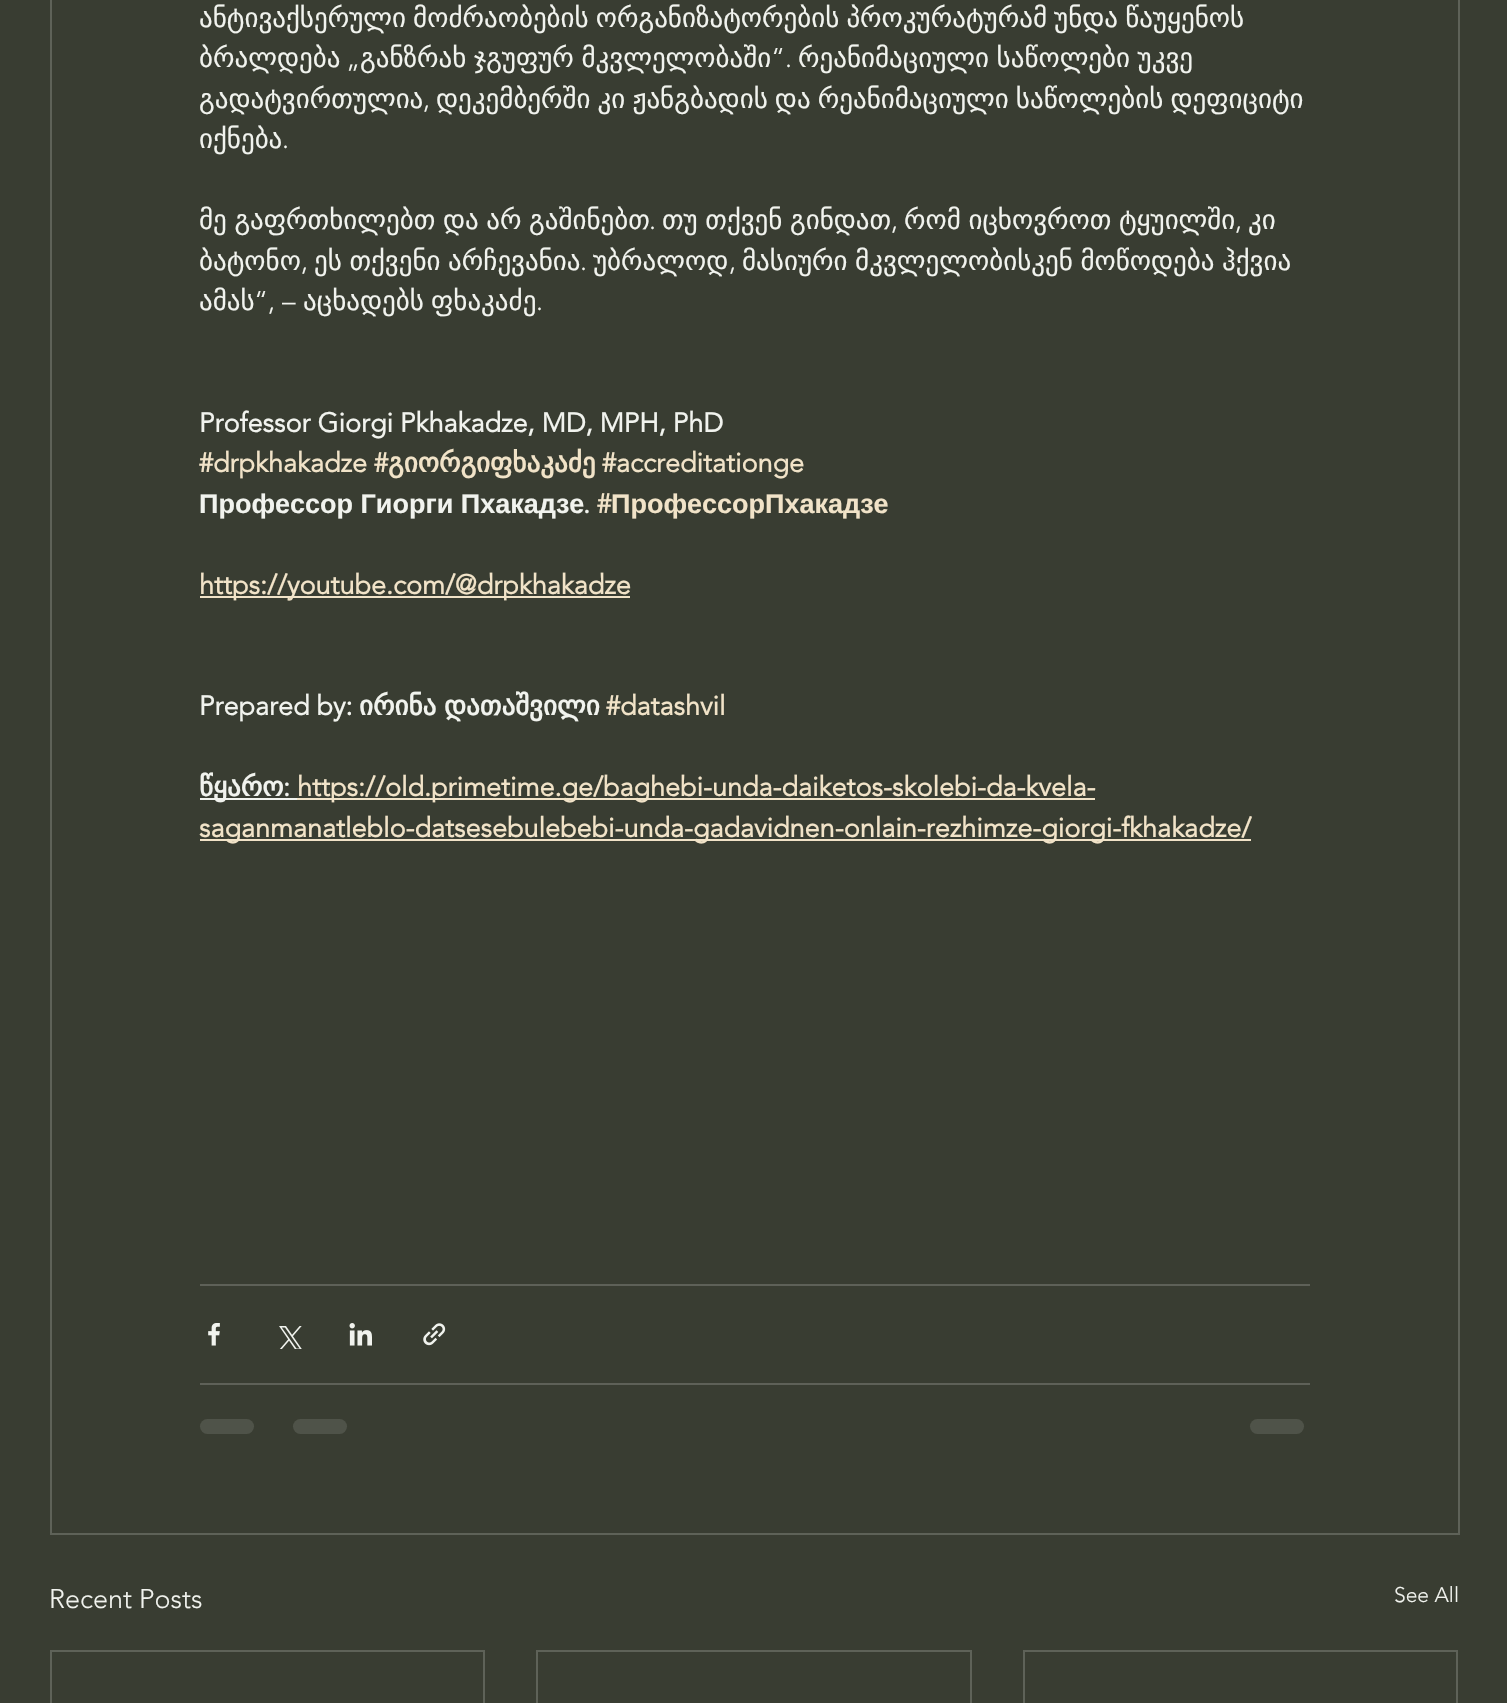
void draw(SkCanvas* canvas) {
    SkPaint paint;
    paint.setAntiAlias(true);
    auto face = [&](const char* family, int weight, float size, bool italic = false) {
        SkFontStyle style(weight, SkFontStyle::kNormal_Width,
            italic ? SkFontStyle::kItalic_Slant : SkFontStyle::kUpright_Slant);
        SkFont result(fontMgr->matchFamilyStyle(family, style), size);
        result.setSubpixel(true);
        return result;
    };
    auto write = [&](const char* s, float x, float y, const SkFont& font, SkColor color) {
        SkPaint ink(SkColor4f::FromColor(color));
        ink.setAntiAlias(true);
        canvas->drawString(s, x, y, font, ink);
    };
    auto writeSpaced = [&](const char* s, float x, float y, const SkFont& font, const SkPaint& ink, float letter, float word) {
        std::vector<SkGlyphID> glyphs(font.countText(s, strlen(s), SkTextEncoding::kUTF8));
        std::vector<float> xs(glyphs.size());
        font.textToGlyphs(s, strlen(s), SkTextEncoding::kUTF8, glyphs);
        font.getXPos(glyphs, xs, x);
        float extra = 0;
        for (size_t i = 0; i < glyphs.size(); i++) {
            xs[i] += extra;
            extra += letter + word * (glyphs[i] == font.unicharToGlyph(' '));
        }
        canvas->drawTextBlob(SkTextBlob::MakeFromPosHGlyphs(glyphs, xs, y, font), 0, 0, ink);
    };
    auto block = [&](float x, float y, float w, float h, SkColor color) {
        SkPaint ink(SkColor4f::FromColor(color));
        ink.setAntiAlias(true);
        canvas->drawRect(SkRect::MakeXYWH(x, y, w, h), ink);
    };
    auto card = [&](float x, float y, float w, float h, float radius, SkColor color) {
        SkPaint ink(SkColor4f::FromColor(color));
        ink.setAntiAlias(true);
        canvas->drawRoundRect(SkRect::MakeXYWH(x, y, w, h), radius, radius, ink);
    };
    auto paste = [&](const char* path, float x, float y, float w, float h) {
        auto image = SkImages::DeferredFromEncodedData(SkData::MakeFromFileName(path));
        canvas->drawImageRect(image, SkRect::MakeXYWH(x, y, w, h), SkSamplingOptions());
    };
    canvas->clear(SkColorSetRGB(57, 61, 50));
    paint.setStyle(SkPaint::kStroke_Style);
    paint.setStrokeWidth(2);
    paint.setColor(SkColorSetRGB(94, 98, 88));
    canvas->drawRect(SkRect::MakeXYWH(51, -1, 1408, 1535), paint);
    auto kFont1 = face("DejaVu Sans", 400, 27);
    paint.setStyle(SkPaint::kFill_Style);
    paint.setColor(SkColorSetRGB(241, 243, 238));
    writeSpaced("ანტივაქსერული მოძრაობების ორგანიზატორების პროკურატურამ უნდა წაუყენოს", 199, 27, kFont1, paint, 0, -1.5f);
    write("ბრალდება", 199, 67, kFont1, SkColorSetRGB(241, 243, 238));
    auto kFont2 = face("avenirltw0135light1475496", 300, 27);
    write("„", 346, 67, kFont2, SkColorSetRGB(241, 243, 238));
    writeSpaced("განზრახ ჯგუფურ მკვლელობაში", 360, 67, kFont1, paint, 0, -1);
    write("“.", 771, 67, kFont2, SkColorSetRGB(241, 243, 238));
    writeSpaced("რეანიმაციული საწოლები უკვე", 798, 67, kFont1, paint, 0, -1);
    write("გადატვირთულია", 199, 108, kFont1, SkColorSetRGB(241, 243, 238));
    write(",", 423, 108, kFont2, SkColorSetRGB(241, 243, 238));
    writeSpaced("დეკემბერში კი ჟანგბადის და რეანიმაციული საწოლების დეფიციტი", 436, 108, kFont1, paint, 0, -1.5f);
    write("იქნება", 199, 148, kFont1, SkColorSetRGB(241, 243, 238));
    write(".", 282, 148, kFont2, SkColorSetRGB(241, 243, 238));
    writeSpaced("მე გაფრთხილებთ და არ გაშინებთ", 199, 229, kFont1, paint, 0, -1);
    write(".", 649, 229, kFont2, SkColorSetRGB(241, 243, 238));
    writeSpaced("თუ თქვენ გინდათ", 662, 229, kFont1, paint, 0, -1);
    write(",", 891, 229, kFont2, SkColorSetRGB(241, 243, 238));
    writeSpaced("რომ იცხოვროთ ტყუილში", 904, 229, kFont1, paint, 0, -1);
    write(",", 1235, 229, kFont2, SkColorSetRGB(241, 243, 238));
    write("კი", 1248, 229, kFont1, SkColorSetRGB(241, 243, 238));
    write("ბატონო", 199, 270, kFont1, SkColorSetRGB(241, 243, 238));
    write(",", 301, 270, kFont2, SkColorSetRGB(241, 243, 238));
    writeSpaced("ეს თქვენი არჩევანია", 314, 270, kFont1, paint, 0, -1);
    write(".", 580, 270, kFont2, SkColorSetRGB(241, 243, 238));
    write("უბრალოდ", 593, 270, kFont1, SkColorSetRGB(241, 243, 238));
    write(",", 729, 270, kFont2, SkColorSetRGB(241, 243, 238));
    writeSpaced("მასიური მკვლელობისკენ მოწოდება ჰქვია", 742, 270, kFont1, paint, 0, -1);
    write("ამას", 199, 310, kFont1, SkColorSetRGB(241, 243, 238));
    write("“, –", 254, 310, kFont2, SkColorSetRGB(241, 243, 238));
    write("აცხადებს", 303, 310, kFont1, SkColorSetRGB(241, 243, 238));
    write("ფხაკაძე", 431, 310, kFont1, SkColorSetRGB(241, 243, 238));
    write(".", 536, 310, kFont2, SkColorSetRGB(241, 243, 238));
    auto kFont3 = face("avenirltw0135light1475496", 700, 27);
    write("Professor Giorgi Pkhakadze, MD, MPH, PhD", 199, 432, kFont3, SkColorSetRGB(241, 243, 238));
    write("#drpkhakadze #", 199, 472, kFont3, SkColorSetRGB(241, 227, 200));
    auto kFont4 = face("DejaVu Sans", 700, 27);
    write("გიორგიფხაკაძე", 388, 472, kFont4, SkColorSetRGB(241, 227, 200));
    write("#accreditationge", 602, 472, kFont3, SkColorSetRGB(241, 227, 200));
    auto kFont5 = face("Liberation Sans", 700, 27);
    write("Профессор Гиорги Пхакадзе", 199, 513, kFont5, SkColorSetRGB(241, 243, 238));
    write(".", 583, 513, kFont3, SkColorSetRGB(241, 243, 238));
    write("#", 597, 513, kFont3, SkColorSetRGB(241, 227, 200));
    write("ПрофессорПхакадзе", 611, 513, kFont5, SkColorSetRGB(241, 227, 200));
    block(200, 596, 430, 2, SkColorSetRGB(241, 227, 200));
    write("https://youtube.com/@drpkhakadze", 199, 594, kFont3, SkColorSetRGB(241, 227, 200));
    write("Prepared by:", 199, 715, kFont3, SkColorSetRGB(241, 243, 238));
    write("ირინა", 359, 715, kFont4, SkColorSetRGB(241, 243, 238));
    write("დათაშვილი", 444, 715, kFont4, SkColorSetRGB(241, 243, 238));
    write("#datashvil", 606, 715, kFont3, SkColorSetRGB(241, 227, 200));
    block(200, 798, 97, 2, SkColorSetRGB(241, 243, 238));
    write("წყარო", 199, 796, kFont4, SkColorSetRGB(241, 243, 238));
    write(":", 283, 796, kFont3, SkColorSetRGB(241, 243, 238));
    block(297, 798, 798, 2, SkColorSetRGB(241, 227, 200));
    write("https://old.primetime.ge/baghebi-unda-daiketos-skolebi-da-kvela-", 297, 796, kFont3, SkColorSetRGB(241, 227, 200));
    block(200, 839, 1051, 2, SkColorSetRGB(241, 227, 200));
    write("saganmanatleblo-datsesebulebebi-unda-gadavidnen-onlain-rezhimze-giorgi-fkhakadze/", 199, 837, kFont3, SkColorSetRGB(241, 227, 200));
    block(200, 1284, 1110, 2, SkColorSetRGB(94, 97, 88));
    paste("pic1.png", 208, 1323, 12, 23);
    paste("pic2.png", 279, 1326, 23, 23);
    paste("pic3.png", 349, 1323, 23, 23);
    paste("pic4.png", 423, 1323, 23, 23);
    block(200, 1383, 1110, 2, SkColorSetRGB(94, 97, 88));
    card(200, 1419, 54, 15, 7.5f, SkColorSetRGB(79, 83, 73));
    card(293, 1419, 54, 15, 7.5f, SkColorSetRGB(79, 83, 73));
    card(1250, 1419, 54, 15, 7.5f, SkColorSetRGB(79, 83, 73));
    write("Recent Posts", 49, 1608, kFont2, SkColorSetRGB(241, 243, 238));
    auto kFont6 = face("avenirltw0135light1475496", 300, 21);
    write("See All", 1394, 1602, kFont6, SkColorSetRGB(241, 243, 238));
    paint.setStyle(SkPaint::kStroke_Style);
    paint.setColor(SkColorSetRGB(94, 98, 88));
    canvas->drawRect(SkRect::MakeXYWH(51, 1651, 433, 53), paint);
    canvas->drawRect(SkRect::MakeXYWH(537, 1651, 434, 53), paint);
    canvas->drawRect(SkRect::MakeXYWH(1024, 1651, 433, 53), paint);
}
